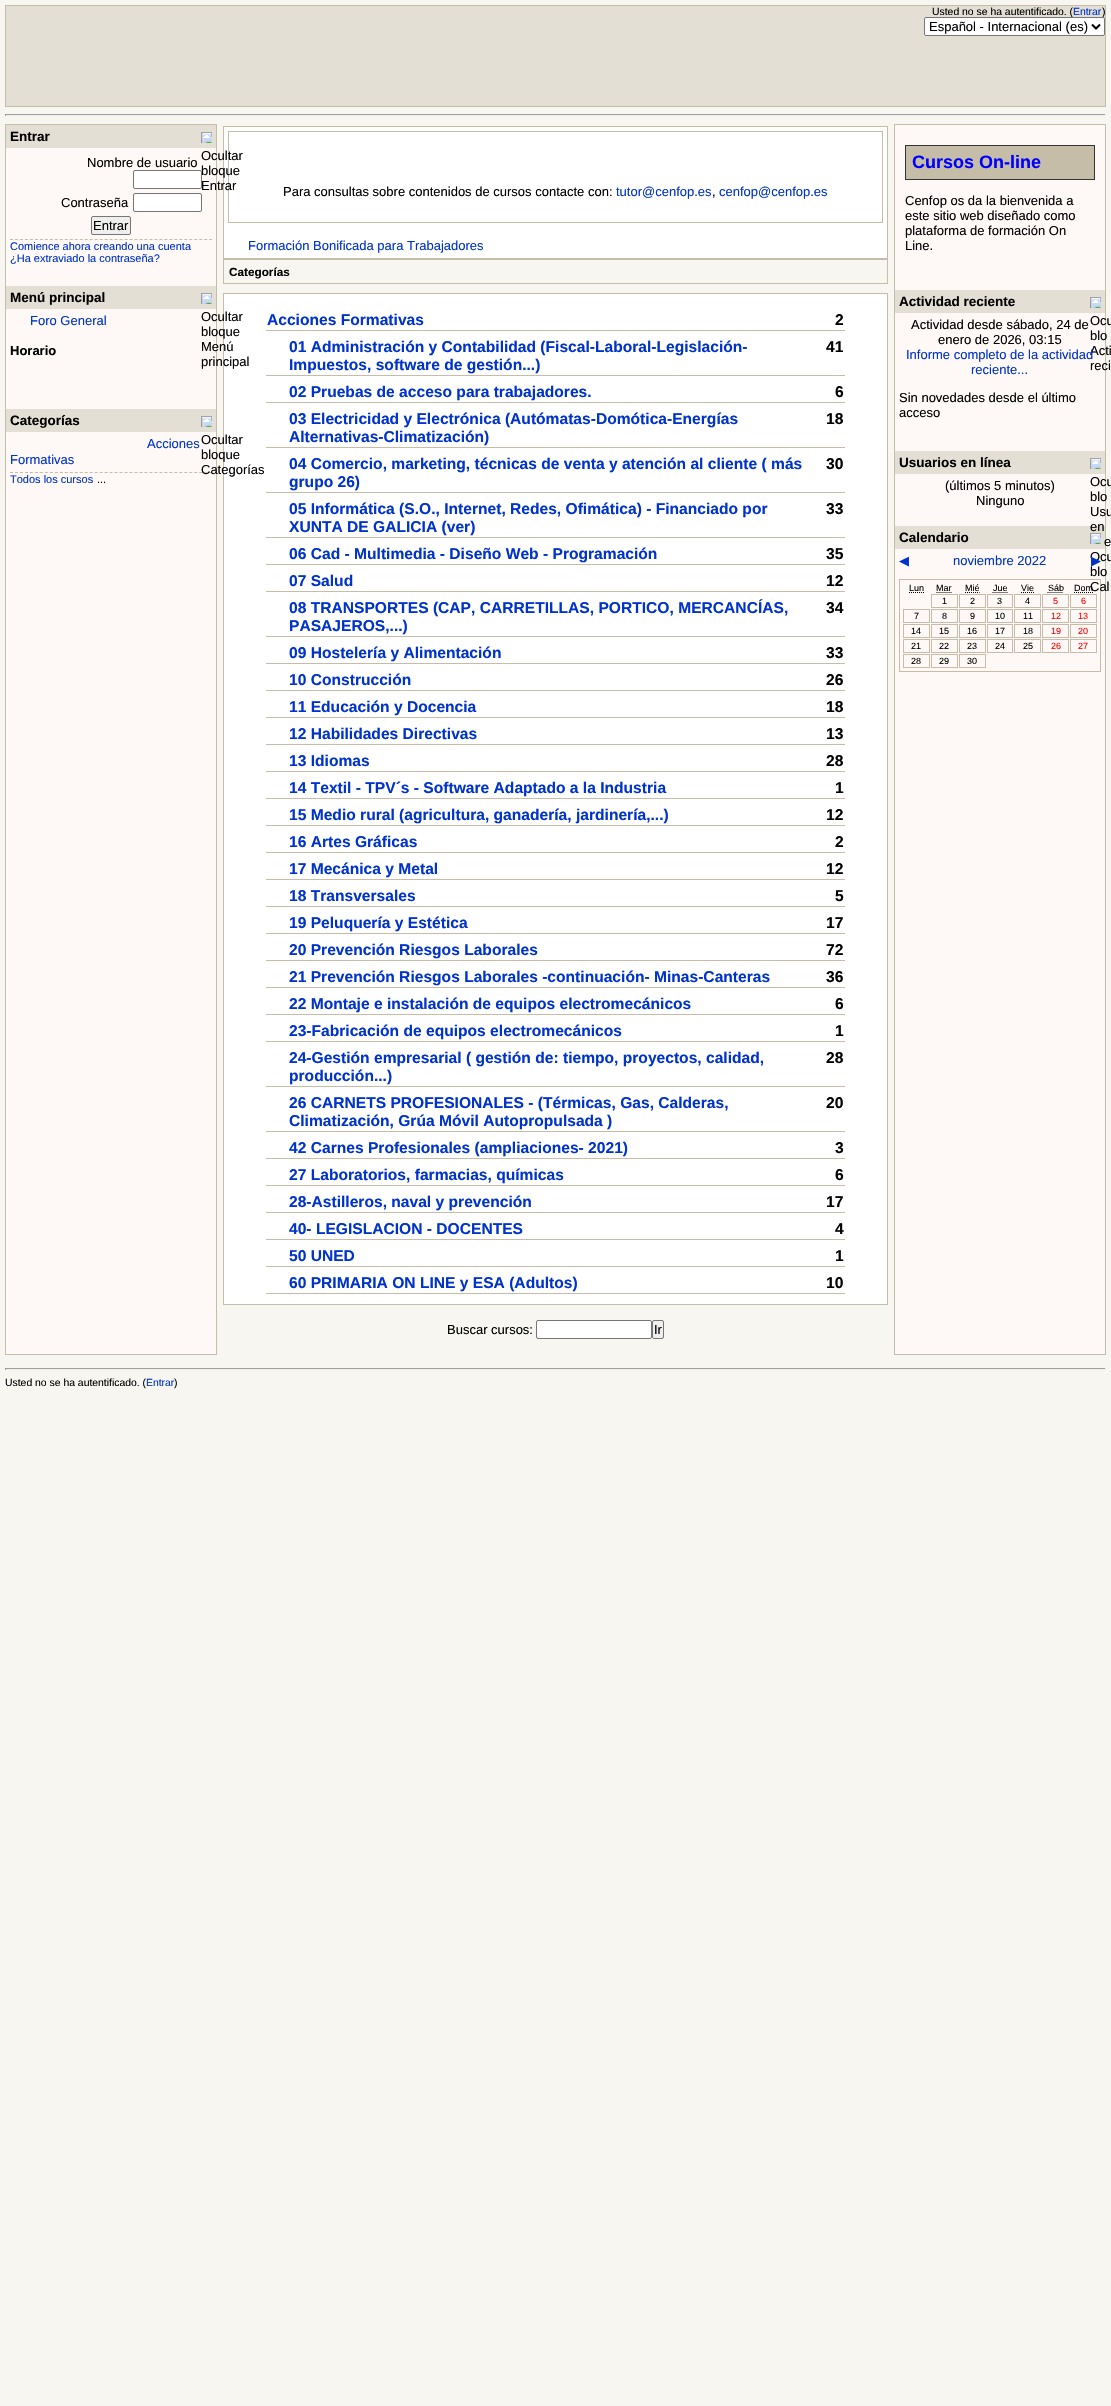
void draw(SkCanvas* canvas) {
    SkPaint paint;
    paint.setAntiAlias(true);
    auto face = [&](const char* family, int weight, float size, bool italic = false) {
        SkFontStyle style(weight, SkFontStyle::kNormal_Width,
            italic ? SkFontStyle::kItalic_Slant : SkFontStyle::kUpright_Slant);
        SkFont result(fontMgr->matchFamilyStyle(family, style), size);
        result.setSubpixel(true);
        return result;
    };
    auto write = [&](const char* s, float x, float y, const SkFont& font, SkColor color) {
        SkPaint ink(SkColor4f::FromColor(color));
        ink.setAntiAlias(true);
        canvas->drawString(s, x, y, font, ink);
    };
    auto block = [&](float x, float y, float w, float h, SkColor color) {
        SkPaint ink(SkColor4f::FromColor(color));
        ink.setAntiAlias(true);
        canvas->drawRect(SkRect::MakeXYWH(x, y, w, h), ink);
    };
    auto paste = [&](const char* path, float x, float y, float w, float h) {
        auto image = SkImages::DeferredFromEncodedData(SkData::MakeFromFileName(path));
        canvas->drawImageRect(image, SkRect::MakeXYWH(x, y, w, h), SkSamplingOptions());
    };
    canvas->clear(SkColorSetRGB(247, 246, 241));
    paint.setColor(SkColorSetRGB(227, 223, 212));
    canvas->drawRect(SkRect::MakeXYWH(5.5f, 5.5f, 1100, 101), paint);
    paint.setStyle(SkPaint::kStroke_Style);
    paint.setStrokeWidth(1);
    paint.setColor(SkColorSetRGB(198, 189, 168));
    canvas->drawRect(SkRect::MakeXYWH(5.5f, 5.5f, 1100, 101), paint);
    auto kFont1 = face("Liberation Sans", 400, 10.4f);
    write("Usted no se ha autentificado. (", 932, 15, kFont1, SK_ColorBLACK);
    write("Entrar", 1073, 15, kFont1, SkColorSetRGB(0, 51, 204));
    write(")", 1102, 15, kFont1, SK_ColorBLACK);
    paint.setStyle(SkPaint::kFill_Style);
    paint.setColor(SK_ColorWHITE);
    canvas->drawRoundRect(SkRect::MakeXYWH(924.5f, 17.5f, 180, 18), 1.5f, 1.5f, paint);
    paint.setStyle(SkPaint::kStroke_Style);
    paint.setColor(SkColorSetRGB(118, 118, 118));
    canvas->drawRoundRect(SkRect::MakeXYWH(924.5f, 17.5f, 180, 18), 1.5f, 1.5f, paint);
    paint.setStrokeWidth(2);
    paint.setColor(SK_ColorBLACK);
    canvas->drawPath(SkPathBuilder().moveTo(1092, 24.5f).lineTo(1096, 28.5f).lineTo(1100, 24.5f).detach(), paint);
    auto kFont2 = face("Liberation Sans", 400, 13);
    write("Español - Internacional (es)", 929, 31, kFont2, SK_ColorBLACK);
    block(5, 114, 1101, 1, SkColorSetRGB(159, 159, 159));
    block(1105, 114, 1, 2, SkColorSetRGB(238, 238, 238));
    block(5, 115, 1101, 1, SkColorSetRGB(238, 238, 238));
    block(5, 114, 1, 2, SkColorSetRGB(159, 159, 159));
    block(6, 148, 210, 1206, SkColorSetRGB(254, 249, 246));
    paint.setStrokeWidth(1);
    paint.setColor(SkColorSetRGB(198, 189, 168));
    canvas->drawRect(SkRect::MakeXYWH(5.5f, 124.5f, 211, 1230), paint);
    block(6, 125, 210, 23, SkColorSetRGB(227, 223, 212));
    auto kFont3 = face("Liberation Sans", 700, 13.5f);
    write("Entrar", 10, 141, kFont3, SK_ColorBLACK);
    paste("pic1.png", 201, 132, 11, 11);
    paint.setStyle(SkPaint::kFill_Style);
    paint.setColor(SK_ColorWHITE);
    canvas->drawRect(SkRect::MakeXYWH(223.5f, 126.5f, 664, 132), paint);
    paint.setStyle(SkPaint::kStroke_Style);
    paint.setColor(SkColorSetRGB(198, 189, 168));
    canvas->drawRect(SkRect::MakeXYWH(223.5f, 126.5f, 664, 132), paint);
    canvas->drawRect(SkRect::MakeXYWH(228.5f, 131.5f, 654, 91), paint);
    write("Ocultar", 201, 160, kFont2, SK_ColorBLACK);
    write("bloque", 201, 175, kFont2, SK_ColorBLACK);
    write("Entrar", 201, 190, kFont2, SK_ColorBLACK);
    write("Nombre de usuario", 87, 167, kFont2, SK_ColorBLACK);
    paint.setStyle(SkPaint::kFill_Style);
    paint.setColor(SK_ColorWHITE);
    canvas->drawRoundRect(SkRect::MakeXYWH(133.5f, 170.5f, 68, 18), 1.5f, 1.5f, paint);
    paint.setStyle(SkPaint::kStroke_Style);
    paint.setColor(SkColorSetRGB(118, 118, 118));
    canvas->drawRoundRect(SkRect::MakeXYWH(133.5f, 170.5f, 68, 18), 1.5f, 1.5f, paint);
    write("Contraseña", 61, 207, kFont2, SK_ColorBLACK);
    paint.setStyle(SkPaint::kFill_Style);
    paint.setColor(SK_ColorWHITE);
    canvas->drawRoundRect(SkRect::MakeXYWH(133.5f, 193.5f, 68, 18), 1.5f, 1.5f, paint);
    paint.setStyle(SkPaint::kStroke_Style);
    paint.setColor(SkColorSetRGB(118, 118, 118));
    canvas->drawRoundRect(SkRect::MakeXYWH(133.5f, 193.5f, 68, 18), 1.5f, 1.5f, paint);
    paint.setStyle(SkPaint::kFill_Style);
    paint.setColor(SkColorSetRGB(239, 239, 239));
    canvas->drawRoundRect(SkRect::MakeXYWH(91.5f, 216.5f, 39, 18), 1.5f, 1.5f, paint);
    paint.setStyle(SkPaint::kStroke_Style);
    paint.setColor(SkColorSetRGB(118, 118, 118));
    canvas->drawRoundRect(SkRect::MakeXYWH(91.5f, 216.5f, 39, 18), 1.5f, 1.5f, paint);
    write("Entrar", 93, 230, kFont2, SK_ColorBLACK);
    paint.setColor(SkColorSetRGB(198, 189, 168));
    paint.setPathEffect(SkDashPathEffect::Make({{3, 1.98f}}, 0));
    canvas->drawPath(SkPathBuilder().moveTo(10, 239.5f).lineTo(212, 239.5f).detach(), paint);
    paint.setPathEffect(nullptr);
    auto kFont4 = face("Liberation Sans", 400, 11);
    write("Comience ahora creando una cuenta", 10, 250, kFont4, SkColorSetRGB(0, 51, 204));
    write("¿Ha extraviado la contraseña?", 10, 262, kFont4, SkColorSetRGB(0, 51, 204));
    block(6, 286, 210, 23, SkColorSetRGB(227, 223, 212));
    write("Menú principal", 10, 302, kFont3, SK_ColorBLACK);
    paste("pic1.png", 201, 293, 11, 11);
    paint.setStyle(SkPaint::kFill_Style);
    paint.setColor(SK_ColorWHITE);
    canvas->drawRect(SkRect::MakeXYWH(223.5f, 293.5f, 664, 1011), paint);
    paint.setStyle(SkPaint::kStroke_Style);
    paint.setColor(SkColorSetRGB(198, 189, 168));
    canvas->drawRect(SkRect::MakeXYWH(223.5f, 293.5f, 664, 1011), paint);
    write("Ocultar", 201, 321, kFont2, SK_ColorBLACK);
    write("bloque", 201, 336, kFont2, SK_ColorBLACK);
    write("Menú", 201, 351, kFont2, SK_ColorBLACK);
    write("principal", 201, 366, kFont2, SK_ColorBLACK);
    write("Foro General", 30, 325, kFont2, SkColorSetRGB(0, 51, 204));
    auto kFont5 = face("Liberation Sans", 700, 13);
    write("Horario", 10, 355, kFont5, SK_ColorBLACK);
    block(6, 409, 210, 23, SkColorSetRGB(227, 223, 212));
    write("Categorías", 10, 425, kFont3, SK_ColorBLACK);
    paste("pic1.png", 201, 416, 11, 11);
    write("Ocultar", 201, 444, kFont2, SK_ColorBLACK);
    write("bloque", 201, 459, kFont2, SK_ColorBLACK);
    paint.setPathEffect(SkDashPathEffect::Make({{3, 1.98f}}, 0));
    canvas->drawPath(SkPathBuilder().moveTo(10, 472.5f).lineTo(212, 472.5f).detach(), paint);
    paint.setPathEffect(nullptr);
    write("Categorías", 201, 474, kFont2, SK_ColorBLACK);
    write("Acciones", 147, 448, kFont2, SkColorSetRGB(0, 51, 204));
    write("Formativas", 10, 464, kFont2, SkColorSetRGB(0, 51, 204));
    write("Todos los cursos", 10, 483, kFont4, SkColorSetRGB(0, 51, 204));
    write("...", 97, 483, kFont4, SK_ColorBLACK);
    write("Para consultas sobre contenidos de cursos contacte con:", 283, 196, kFont2, SK_ColorBLACK);
    write("tutor@cenfop.es", 616, 196, kFont2, SkColorSetRGB(0, 51, 204));
    write(",", 712, 196, kFont2, SK_ColorBLACK);
    write("cenfop@cenfop.es", 719, 196, kFont2, SkColorSetRGB(0, 51, 204));
    write("Formación Bonificada para Trabajadores", 248, 250, kFont2, SkColorSetRGB(0, 51, 204));
    canvas->drawRect(SkRect::MakeXYWH(223.5f, 259.5f, 664, 24), paint);
    auto kFont6 = face("Liberation Sans", 700, 11.75f);
    write("Categorías", 229, 276, kFont6, SK_ColorBLACK);
    auto kFont7 = face("Liberation Sans", 700, 15.6f);
    write("Acciones Formativas", 267, 325, kFont7, SkColorSetRGB(0, 51, 204));
    block(266, 330, 579, 1, SkColorSetRGB(198, 189, 168));
    write("2", 835, 325, kFont7, SK_ColorBLACK);
    write("01 Administración y Contabilidad (Fiscal-Laboral-Legislación-", 289, 352, kFont7, SkColorSetRGB(0, 51, 204));
    write("Impuestos, software de gestión...)", 289, 370, kFont7, SkColorSetRGB(0, 51, 204));
    block(266, 375, 579, 1, SkColorSetRGB(198, 189, 168));
    write("41", 826, 352, kFont7, SK_ColorBLACK);
    write("02 Pruebas de acceso para trabajadores.", 289, 397, kFont7, SkColorSetRGB(0, 51, 204));
    block(266, 402, 579, 1, SkColorSetRGB(198, 189, 168));
    write("6", 835, 397, kFont7, SK_ColorBLACK);
    write("03 Electricidad y Electrónica (Autómatas-Domótica-Energías", 289, 424, kFont7, SkColorSetRGB(0, 51, 204));
    write("Alternativas-Climatización)", 289, 442, kFont7, SkColorSetRGB(0, 51, 204));
    block(266, 447, 579, 1, SkColorSetRGB(198, 189, 168));
    write("18", 826, 424, kFont7, SK_ColorBLACK);
    write("04 Comercio, marketing, técnicas de venta y atención al cliente ( más", 289, 469, kFont7, SkColorSetRGB(0, 51, 204));
    write("grupo 26)", 289, 487, kFont7, SkColorSetRGB(0, 51, 204));
    block(266, 492, 579, 1, SkColorSetRGB(198, 189, 168));
    write("30", 826, 469, kFont7, SK_ColorBLACK);
    write("05 Informática (S.O., Internet, Redes, Ofimática) - Financiado por", 289, 514, kFont7, SkColorSetRGB(0, 51, 204));
    write("XUNTA DE GALICIA (ver)", 289, 532, kFont7, SkColorSetRGB(0, 51, 204));
    block(266, 537, 579, 1, SkColorSetRGB(198, 189, 168));
    write("33", 826, 514, kFont7, SK_ColorBLACK);
    write("06 Cad - Multimedia - Diseño Web - Programación", 289, 559, kFont7, SkColorSetRGB(0, 51, 204));
    block(266, 564, 579, 1, SkColorSetRGB(198, 189, 168));
    write("35", 826, 559, kFont7, SK_ColorBLACK);
    write("07 Salud", 289, 586, kFont7, SkColorSetRGB(0, 51, 204));
    block(266, 591, 579, 1, SkColorSetRGB(198, 189, 168));
    write("12", 826, 586, kFont7, SK_ColorBLACK);
    write("08 TRANSPORTES (CAP, CARRETILLAS, PORTICO, MERCANCÍAS,", 289, 613, kFont7, SkColorSetRGB(0, 51, 204));
    write("PASAJEROS,...)", 289, 631, kFont7, SkColorSetRGB(0, 51, 204));
    block(266, 636, 579, 1, SkColorSetRGB(198, 189, 168));
    write("34", 826, 613, kFont7, SK_ColorBLACK);
    write("09 Hostelería y Alimentación", 289, 658, kFont7, SkColorSetRGB(0, 51, 204));
    block(266, 663, 579, 1, SkColorSetRGB(198, 189, 168));
    write("33", 826, 658, kFont7, SK_ColorBLACK);
    write("10 Construcción", 289, 685, kFont7, SkColorSetRGB(0, 51, 204));
    block(266, 690, 579, 1, SkColorSetRGB(198, 189, 168));
    write("26", 826, 685, kFont7, SK_ColorBLACK);
    write("11 Educación y Docencia", 289, 712, kFont7, SkColorSetRGB(0, 51, 204));
    block(266, 717, 579, 1, SkColorSetRGB(198, 189, 168));
    write("18", 826, 712, kFont7, SK_ColorBLACK);
    write("12 Habilidades Directivas", 289, 739, kFont7, SkColorSetRGB(0, 51, 204));
    block(266, 744, 579, 1, SkColorSetRGB(198, 189, 168));
    write("13", 826, 739, kFont7, SK_ColorBLACK);
    write("13 Idiomas", 289, 766, kFont7, SkColorSetRGB(0, 51, 204));
    block(266, 771, 579, 1, SkColorSetRGB(198, 189, 168));
    write("28", 826, 766, kFont7, SK_ColorBLACK);
    write("14 Textil - TPV´s - Software Adaptado a la Industria", 289, 793, kFont7, SkColorSetRGB(0, 51, 204));
    block(266, 798, 579, 1, SkColorSetRGB(198, 189, 168));
    write("1", 835, 793, kFont7, SK_ColorBLACK);
    write("15 Medio rural (agricultura, ganadería, jardinería,...)", 289, 820, kFont7, SkColorSetRGB(0, 51, 204));
    block(266, 825, 579, 1, SkColorSetRGB(198, 189, 168));
    write("12", 826, 820, kFont7, SK_ColorBLACK);
    write("16 Artes Gráficas", 289, 847, kFont7, SkColorSetRGB(0, 51, 204));
    block(266, 852, 579, 1, SkColorSetRGB(198, 189, 168));
    write("2", 835, 847, kFont7, SK_ColorBLACK);
    write("17 Mecánica y Metal", 289, 874, kFont7, SkColorSetRGB(0, 51, 204));
    block(266, 879, 579, 1, SkColorSetRGB(198, 189, 168));
    write("12", 826, 874, kFont7, SK_ColorBLACK);
    write("18 Transversales", 289, 901, kFont7, SkColorSetRGB(0, 51, 204));
    block(266, 906, 579, 1, SkColorSetRGB(198, 189, 168));
    write("5", 835, 901, kFont7, SK_ColorBLACK);
    write("19 Peluquería y Estética", 289, 928, kFont7, SkColorSetRGB(0, 51, 204));
    block(266, 933, 579, 1, SkColorSetRGB(198, 189, 168));
    write("17", 826, 928, kFont7, SK_ColorBLACK);
    write("20 Prevención Riesgos Laborales", 289, 955, kFont7, SkColorSetRGB(0, 51, 204));
    block(266, 960, 579, 1, SkColorSetRGB(198, 189, 168));
    write("72", 826, 955, kFont7, SK_ColorBLACK);
    write("21 Prevención Riesgos Laborales -continuación- Minas-Canteras", 289, 982, kFont7, SkColorSetRGB(0, 51, 204));
    block(266, 987, 579, 1, SkColorSetRGB(198, 189, 168));
    write("36", 826, 982, kFont7, SK_ColorBLACK);
    write("22 Montaje e instalación de equipos electromecánicos", 289, 1009, kFont7, SkColorSetRGB(0, 51, 204));
    block(266, 1014, 579, 1, SkColorSetRGB(198, 189, 168));
    write("6", 835, 1009, kFont7, SK_ColorBLACK);
    write("23-Fabricación de equipos electromecánicos", 289, 1036, kFont7, SkColorSetRGB(0, 51, 204));
    block(266, 1041, 579, 1, SkColorSetRGB(198, 189, 168));
    write("1", 835, 1036, kFont7, SK_ColorBLACK);
    write("24-Gestión empresarial ( gestión de: tiempo, proyectos, calidad,", 289, 1063, kFont7, SkColorSetRGB(0, 51, 204));
    write("producción...)", 289, 1081, kFont7, SkColorSetRGB(0, 51, 204));
    block(266, 1086, 579, 1, SkColorSetRGB(198, 189, 168));
    write("28", 826, 1063, kFont7, SK_ColorBLACK);
    write("26 CARNETS PROFESIONALES - (Térmicas, Gas, Calderas,", 289, 1108, kFont7, SkColorSetRGB(0, 51, 204));
    write("Climatización, Grúa Móvil Autopropulsada )", 289, 1126, kFont7, SkColorSetRGB(0, 51, 204));
    block(266, 1131, 579, 1, SkColorSetRGB(198, 189, 168));
    write("20", 826, 1108, kFont7, SK_ColorBLACK);
    write("42 Carnes Profesionales (ampliaciones- 2021)", 289, 1153, kFont7, SkColorSetRGB(0, 51, 204));
    block(266, 1158, 579, 1, SkColorSetRGB(198, 189, 168));
    write("3", 835, 1153, kFont7, SK_ColorBLACK);
    write("27 Laboratorios, farmacias, químicas", 289, 1180, kFont7, SkColorSetRGB(0, 51, 204));
    block(266, 1185, 579, 1, SkColorSetRGB(198, 189, 168));
    write("6", 835, 1180, kFont7, SK_ColorBLACK);
    write("28-Astilleros, naval y prevención", 289, 1207, kFont7, SkColorSetRGB(0, 51, 204));
    block(266, 1212, 579, 1, SkColorSetRGB(198, 189, 168));
    write("17", 826, 1207, kFont7, SK_ColorBLACK);
    write("40- LEGISLACION - DOCENTES", 289, 1234, kFont7, SkColorSetRGB(0, 51, 204));
    block(266, 1239, 579, 1, SkColorSetRGB(198, 189, 168));
    write("4", 835, 1234, kFont7, SK_ColorBLACK);
    write("50 UNED", 289, 1261, kFont7, SkColorSetRGB(0, 51, 204));
    block(266, 1266, 579, 1, SkColorSetRGB(198, 189, 168));
    write("1", 835, 1261, kFont7, SK_ColorBLACK);
    write("60 PRIMARIA ON LINE y ESA (Adultos)", 289, 1288, kFont7, SkColorSetRGB(0, 51, 204));
    block(266, 1293, 579, 1, SkColorSetRGB(198, 189, 168));
    write("10", 826, 1288, kFont7, SK_ColorBLACK);
    write("Buscar cursos:", 447, 1334, kFont2, SK_ColorBLACK);
    paint.setStyle(SkPaint::kFill_Style);
    paint.setColor(SK_ColorWHITE);
    canvas->drawRoundRect(SkRect::MakeXYWH(536.5f, 1320.5f, 115, 18), 1.5f, 1.5f, paint);
    paint.setStyle(SkPaint::kStroke_Style);
    paint.setColor(SkColorSetRGB(118, 118, 118));
    canvas->drawRoundRect(SkRect::MakeXYWH(536.5f, 1320.5f, 115, 18), 1.5f, 1.5f, paint);
    paint.setStyle(SkPaint::kFill_Style);
    paint.setColor(SkColorSetRGB(239, 239, 239));
    canvas->drawRoundRect(SkRect::MakeXYWH(652.5f, 1320.5f, 11, 18), 1.5f, 1.5f, paint);
    paint.setStyle(SkPaint::kStroke_Style);
    paint.setColor(SkColorSetRGB(118, 118, 118));
    canvas->drawRoundRect(SkRect::MakeXYWH(652.5f, 1320.5f, 11, 18), 1.5f, 1.5f, paint);
    write("Ir", 654, 1334, kFont2, SK_ColorBLACK);
    paint.setStyle(SkPaint::kFill_Style);
    paint.setColor(SkColorSetRGB(254, 249, 246));
    canvas->drawRect(SkRect::MakeXYWH(894.5f, 124.5f, 211, 1230), paint);
    paint.setStyle(SkPaint::kStroke_Style);
    paint.setColor(SkColorSetRGB(198, 189, 168));
    canvas->drawRect(SkRect::MakeXYWH(894.5f, 124.5f, 211, 1230), paint);
    paint.setStyle(SkPaint::kFill_Style);
    canvas->drawRect(SkRect::MakeXYWH(905.5f, 145.5f, 189, 34), paint);
    paint.setStyle(SkPaint::kStroke_Style);
    paint.setColor(SkColorSetRGB(51, 51, 51));
    canvas->drawRect(SkRect::MakeXYWH(905.5f, 145.5f, 189, 34), paint);
    auto kFont8 = face("Liberation Sans", 700, 18);
    write("Cursos On-line", 912, 168, kFont8, SkColorSetRGB(0, 0, 255));
    write("Cenfop os da la bienvenida a", 905, 205, kFont2, SK_ColorBLACK);
    write("este sitio web diseñado como", 905, 220, kFont2, SK_ColorBLACK);
    write("plataforma de formación On", 905, 235, kFont2, SK_ColorBLACK);
    write("Line.", 905, 250, kFont2, SK_ColorBLACK);
    block(895, 290, 210, 23, SkColorSetRGB(227, 223, 212));
    write("Actividad reciente", 899, 306, kFont3, SK_ColorBLACK);
    paste("pic1.png", 1090, 297, 11, 11);
    write("Ocu", 1090, 325, kFont2, SK_ColorBLACK);
    write("blo", 1090, 340, kFont2, SK_ColorBLACK);
    write("Acti", 1090, 355, kFont2, SK_ColorBLACK);
    write("reci", 1090, 370, kFont2, SK_ColorBLACK);
    write("Actividad desde sábado, 24 de", 911, 329, kFont2, SK_ColorBLACK);
    write("enero de 2026, 03:15", 938, 344, kFont2, SK_ColorBLACK);
    write("Informe completo de la actividad", 906, 359, kFont2, SkColorSetRGB(0, 51, 204));
    write("reciente...", 971, 374, kFont2, SkColorSetRGB(0, 51, 204));
    write("Sin novedades desde el último", 899, 402, kFont2, SK_ColorBLACK);
    write("acceso", 899, 417, kFont2, SK_ColorBLACK);
    block(895, 451, 210, 23, SkColorSetRGB(227, 223, 212));
    write("Usuarios en línea", 899, 467, kFont3, SK_ColorBLACK);
    paste("pic1.png", 1090, 458, 11, 11);
    write("Ocu", 1090, 486, kFont2, SK_ColorBLACK);
    write("blo", 1090, 501, kFont2, SK_ColorBLACK);
    write("Usu", 1090, 516, kFont2, SK_ColorBLACK);
    block(895, 526, 210, 23, SkColorSetRGB(227, 223, 212));
    write("en", 1090, 531, kFont2, SK_ColorBLACK);
    write("e", 1104, 546, kFont2, SK_ColorBLACK);
    write("(últimos 5 minutos)", 945, 490, kFont2, SK_ColorBLACK);
    write("Ninguno", 976, 505, kFont2, SK_ColorBLACK);
    write("Calendario", 899, 542, kFont3, SK_ColorBLACK);
    paste("pic1.png", 1090, 533, 11, 11);
    write("Ocu", 1090, 561, kFont2, SK_ColorBLACK);
    write("blo", 1090, 576, kFont2, SK_ColorBLACK);
    paint.setColor(SkColorSetRGB(198, 189, 168));
    canvas->drawRect(SkRect::MakeXYWH(899.5f, 579.5f, 201, 92), paint);
    write("Cal", 1090, 591, kFont2, SK_ColorBLACK);
    auto kFont9 = face("DejaVu Sans", 400, 13);
    write("◀", 899, 565, kFont9, SkColorSetRGB(0, 51, 204));
    write("noviembre 2022", 953, 565, kFont2, SkColorSetRGB(0, 51, 204));
    write("▶", 1091, 565, kFont9, SkColorSetRGB(0, 51, 204));
    auto kFont10 = face("Liberation Sans", 400, 9);
    write("Lun", 909, 591, kFont10, SK_ColorBLACK);
    paint.setColor(SK_ColorBLACK);
    paint.setPathEffect(SkDashPathEffect::Make({{1, 1}}, 0));
    canvas->drawPath(SkPathBuilder().moveTo(909, 592.5f).lineTo(924, 592.5f).detach(), paint);
    paint.setPathEffect(nullptr);
    write("Mar", 936, 591, kFont10, SK_ColorBLACK);
    paint.setPathEffect(SkDashPathEffect::Make({{1, 1}}, 0));
    canvas->drawPath(SkPathBuilder().moveTo(936.5f, 592.5f).lineTo(952, 592.5f).detach(), paint);
    paint.setPathEffect(nullptr);
    write("Mié", 965, 591, kFont10, SK_ColorBLACK);
    paint.setPathEffect(SkDashPathEffect::Make({{1, 1}}, 0));
    canvas->drawPath(SkPathBuilder().moveTo(965, 592.5f).lineTo(979.5f, 592.5f).detach(), paint);
    paint.setPathEffect(nullptr);
    write("Jue", 993, 591, kFont10, SK_ColorBLACK);
    paint.setPathEffect(SkDashPathEffect::Make({{1, 1}}, 0));
    canvas->drawPath(SkPathBuilder().moveTo(992.5f, 592.5f).lineTo(1007.5f, 592.5f).detach(), paint);
    paint.setPathEffect(nullptr);
    write("Vie", 1021, 591, kFont10, SK_ColorBLACK);
    paint.setPathEffect(SkDashPathEffect::Make({{1, 1}}, 0));
    canvas->drawPath(SkPathBuilder().moveTo(1021, 592.5f).lineTo(1034.5f, 592.5f).detach(), paint);
    paint.setPathEffect(nullptr);
    write("Sáb", 1048, 591, kFont10, SK_ColorBLACK);
    paint.setPathEffect(SkDashPathEffect::Make({{1, 1}}, 0));
    canvas->drawPath(SkPathBuilder().moveTo(1047.5f, 592.5f).lineTo(1063.5f, 592.5f).detach(), paint);
    paint.setPathEffect(nullptr);
    write("Dom", 1074, 591, kFont10, SK_ColorBLACK);
    paint.setPathEffect(SkDashPathEffect::Make({{1, 1}}, 0));
    canvas->drawPath(SkPathBuilder().moveTo(1074, 592.5f).lineTo(1093, 592.5f).detach(), paint);
    paint.setPathEffect(nullptr);
    paint.setColor(SkColorSetRGB(198, 189, 168));
    canvas->drawRect(SkRect::MakeXYWH(931.5f, 594.5f, 26, 13), paint);
    write("1", 942, 604, kFont10, SK_ColorBLACK);
    canvas->drawRect(SkRect::MakeXYWH(959.5f, 594.5f, 26, 13), paint);
    write("2", 970, 604, kFont10, SK_ColorBLACK);
    canvas->drawRect(SkRect::MakeXYWH(987.5f, 594.5f, 25, 13), paint);
    write("3", 997, 604, kFont10, SK_ColorBLACK);
    canvas->drawRect(SkRect::MakeXYWH(1014.5f, 594.5f, 26, 13), paint);
    write("4", 1025, 604, kFont10, SK_ColorBLACK);
    canvas->drawRect(SkRect::MakeXYWH(1042.5f, 594.5f, 26, 13), paint);
    write("5", 1053, 604, kFont10, SkColorSetRGB(255, 0, 0));
    canvas->drawRect(SkRect::MakeXYWH(1070.5f, 594.5f, 26, 13), paint);
    write("6", 1081, 604, kFont10, SkColorSetRGB(255, 0, 0));
    canvas->drawRect(SkRect::MakeXYWH(903.5f, 609.5f, 26, 13), paint);
    write("7", 914, 619, kFont10, SK_ColorBLACK);
    canvas->drawRect(SkRect::MakeXYWH(931.5f, 609.5f, 26, 13), paint);
    write("8", 942, 619, kFont10, SK_ColorBLACK);
    canvas->drawRect(SkRect::MakeXYWH(959.5f, 609.5f, 26, 13), paint);
    write("9", 970, 619, kFont10, SK_ColorBLACK);
    canvas->drawRect(SkRect::MakeXYWH(987.5f, 609.5f, 25, 13), paint);
    write("10", 995, 619, kFont10, SK_ColorBLACK);
    canvas->drawRect(SkRect::MakeXYWH(1014.5f, 609.5f, 26, 13), paint);
    write("11", 1023, 619, kFont10, SK_ColorBLACK);
    canvas->drawRect(SkRect::MakeXYWH(1042.5f, 609.5f, 26, 13), paint);
    write("12", 1051, 619, kFont10, SkColorSetRGB(255, 0, 0));
    canvas->drawRect(SkRect::MakeXYWH(1070.5f, 609.5f, 26, 13), paint);
    write("13", 1078, 619, kFont10, SkColorSetRGB(255, 0, 0));
    canvas->drawRect(SkRect::MakeXYWH(903.5f, 624.5f, 26, 13), paint);
    write("14", 911, 634, kFont10, SK_ColorBLACK);
    canvas->drawRect(SkRect::MakeXYWH(931.5f, 624.5f, 26, 13), paint);
    write("15", 939, 634, kFont10, SK_ColorBLACK);
    canvas->drawRect(SkRect::MakeXYWH(959.5f, 624.5f, 26, 13), paint);
    write("16", 967, 634, kFont10, SK_ColorBLACK);
    canvas->drawRect(SkRect::MakeXYWH(987.5f, 624.5f, 25, 13), paint);
    write("17", 995, 634, kFont10, SK_ColorBLACK);
    canvas->drawRect(SkRect::MakeXYWH(1014.5f, 624.5f, 26, 13), paint);
    write("18", 1023, 634, kFont10, SK_ColorBLACK);
    canvas->drawRect(SkRect::MakeXYWH(1042.5f, 624.5f, 26, 13), paint);
    write("19", 1051, 634, kFont10, SkColorSetRGB(255, 0, 0));
    canvas->drawRect(SkRect::MakeXYWH(1070.5f, 624.5f, 26, 13), paint);
    write("20", 1078, 634, kFont10, SkColorSetRGB(255, 0, 0));
    canvas->drawRect(SkRect::MakeXYWH(903.5f, 639.5f, 26, 13), paint);
    write("21", 911, 649, kFont10, SK_ColorBLACK);
    canvas->drawRect(SkRect::MakeXYWH(931.5f, 639.5f, 26, 13), paint);
    write("22", 939, 649, kFont10, SK_ColorBLACK);
    canvas->drawRect(SkRect::MakeXYWH(959.5f, 639.5f, 26, 13), paint);
    write("23", 967, 649, kFont10, SK_ColorBLACK);
    canvas->drawRect(SkRect::MakeXYWH(987.5f, 639.5f, 25, 13), paint);
    write("24", 995, 649, kFont10, SK_ColorBLACK);
    canvas->drawRect(SkRect::MakeXYWH(1014.5f, 639.5f, 26, 13), paint);
    write("25", 1023, 649, kFont10, SK_ColorBLACK);
    canvas->drawRect(SkRect::MakeXYWH(1042.5f, 639.5f, 26, 13), paint);
    write("26", 1051, 649, kFont10, SkColorSetRGB(255, 0, 0));
    canvas->drawRect(SkRect::MakeXYWH(1070.5f, 639.5f, 26, 13), paint);
    write("27", 1078, 649, kFont10, SkColorSetRGB(255, 0, 0));
    canvas->drawRect(SkRect::MakeXYWH(903.5f, 654.5f, 26, 13), paint);
    write("28", 911, 664, kFont10, SK_ColorBLACK);
    canvas->drawRect(SkRect::MakeXYWH(931.5f, 654.5f, 26, 13), paint);
    write("29", 939, 664, kFont10, SK_ColorBLACK);
    canvas->drawRect(SkRect::MakeXYWH(959.5f, 654.5f, 26, 13), paint);
    write("30", 967, 664, kFont10, SK_ColorBLACK);
    block(5, 1368, 1101, 1, SkColorSetRGB(159, 159, 159));
    block(1105, 1368, 1, 2, SkColorSetRGB(238, 238, 238));
    block(5, 1369, 1101, 1, SkColorSetRGB(238, 238, 238));
    block(5, 1368, 1, 2, SkColorSetRGB(159, 159, 159));
    write("Usted no se ha autentificado. (", 5, 1386, kFont1, SK_ColorBLACK);
    write("Entrar", 146, 1386, kFont1, SkColorSetRGB(0, 51, 204));
    write(")", 174, 1386, kFont1, SK_ColorBLACK);
}
